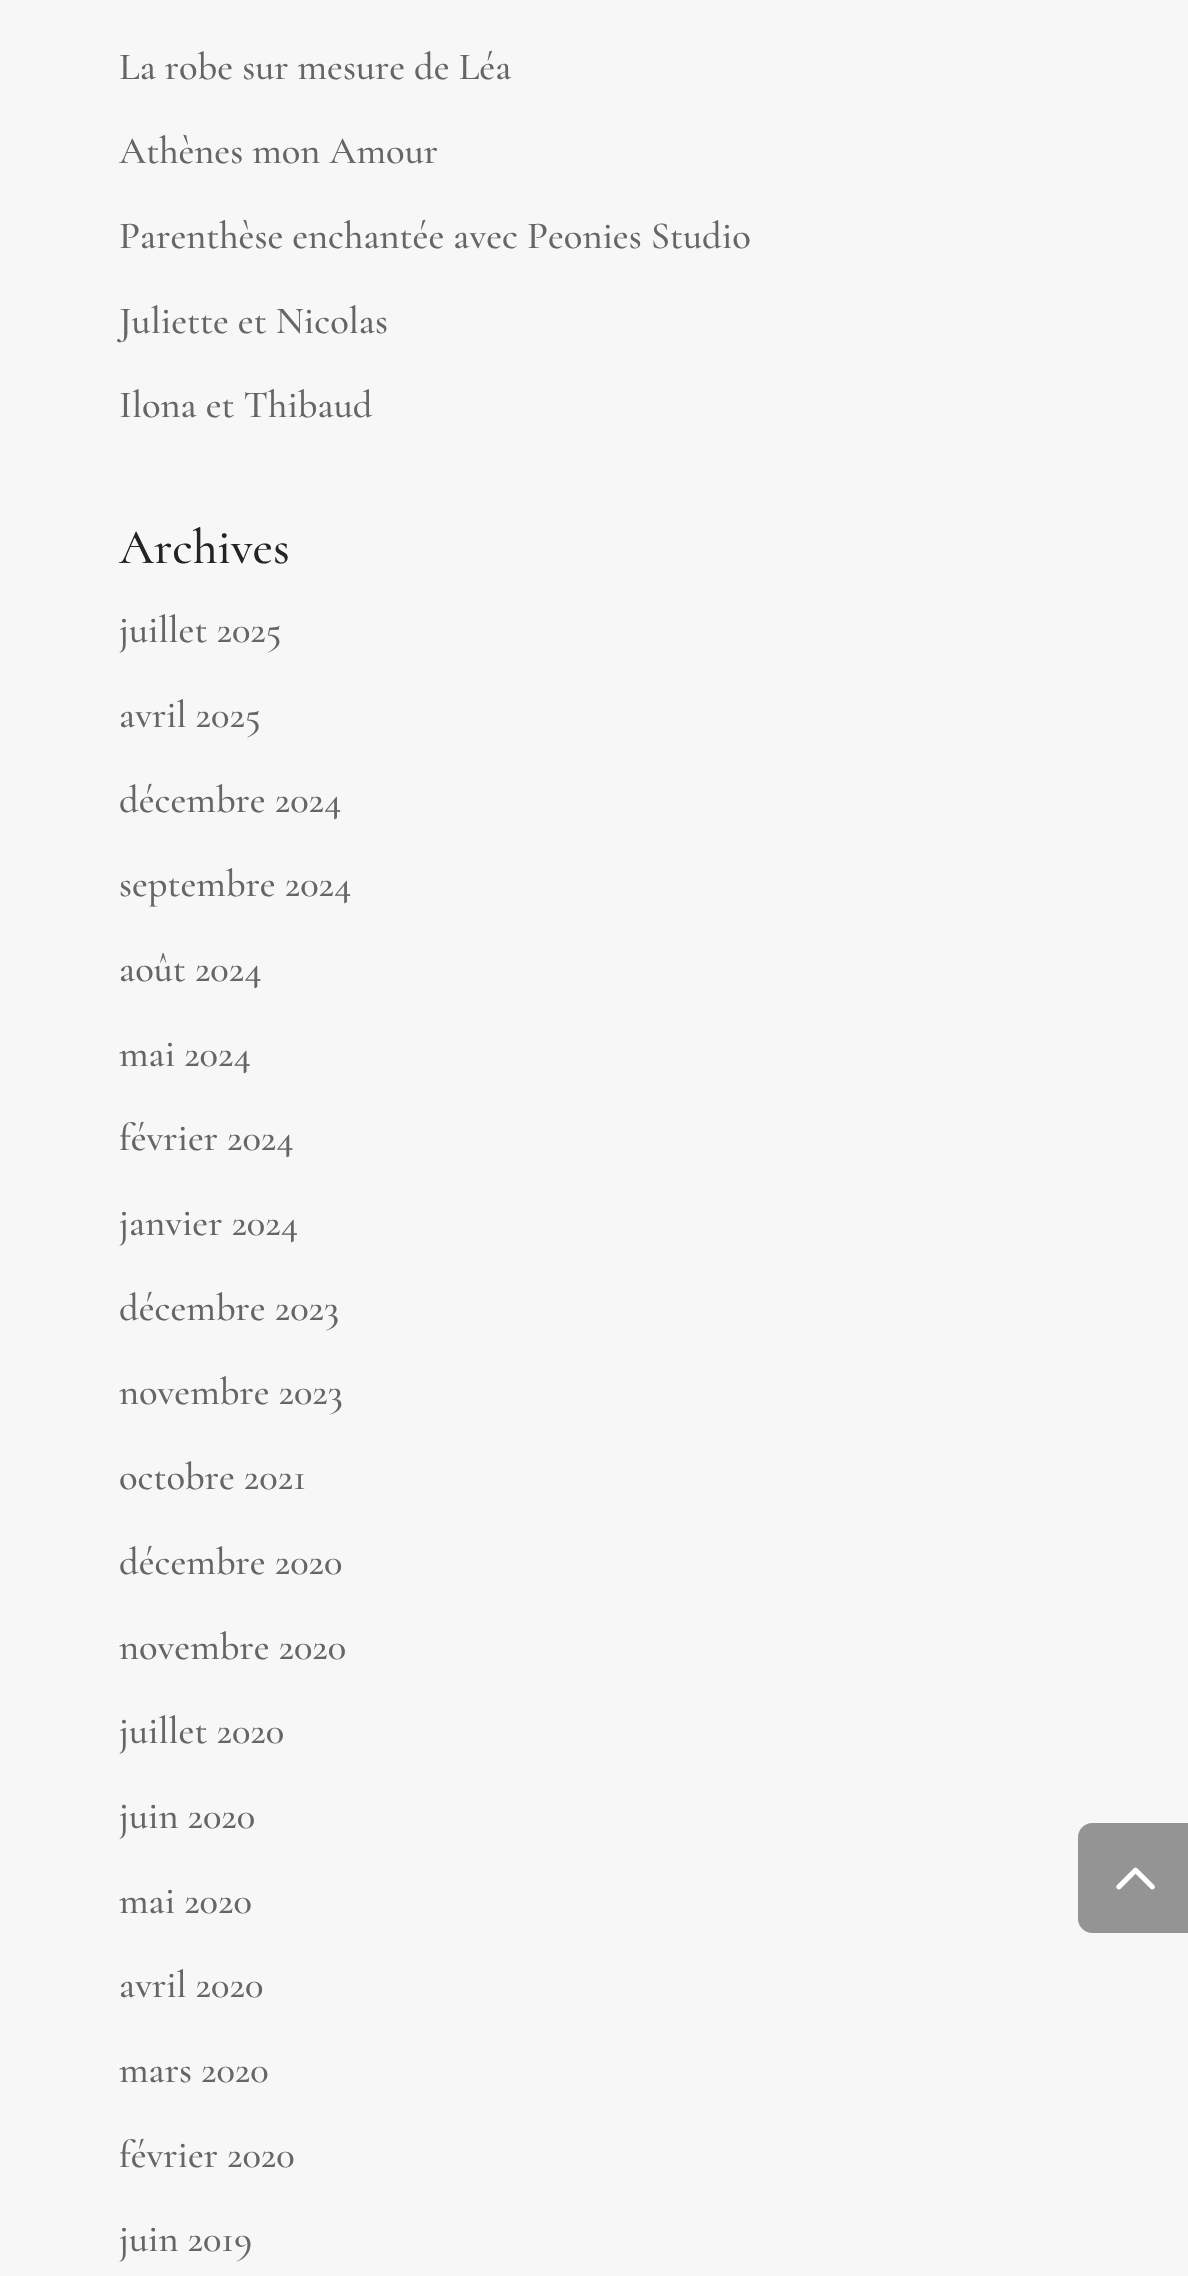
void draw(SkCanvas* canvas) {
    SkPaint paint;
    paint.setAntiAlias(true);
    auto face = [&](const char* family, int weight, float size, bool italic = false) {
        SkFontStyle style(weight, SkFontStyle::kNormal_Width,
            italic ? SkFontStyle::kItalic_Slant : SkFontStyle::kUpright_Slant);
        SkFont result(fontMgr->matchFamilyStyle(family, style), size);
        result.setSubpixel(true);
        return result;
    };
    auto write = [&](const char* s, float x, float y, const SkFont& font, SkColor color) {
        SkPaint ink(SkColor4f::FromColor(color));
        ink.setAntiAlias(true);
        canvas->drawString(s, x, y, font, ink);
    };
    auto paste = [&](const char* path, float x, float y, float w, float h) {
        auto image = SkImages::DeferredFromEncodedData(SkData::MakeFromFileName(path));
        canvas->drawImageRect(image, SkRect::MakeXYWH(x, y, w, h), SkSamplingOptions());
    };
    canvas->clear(SkColorSetRGB(247, 247, 247));
    auto kFont1 = face("Cormorant Garamond", 300, 38.5f);
    write("La robe sur mesure de Léa", 119, 79, kFont1, SkColorSetRGB(102, 102, 102));
    write("Athènes mon Amour", 119, 163, kFont1, SkColorSetRGB(102, 102, 102));
    write("Parenthèse enchantée avec Peonies Studio", 119, 248, kFont1, SkColorSetRGB(102, 102, 102));
    write("Juliette et Nicolas", 119, 333, kFont1, SkColorSetRGB(102, 102, 102));
    write("Ilona et Thibaud", 119, 417, kFont1, SkColorSetRGB(102, 102, 102));
    auto kFont2 = face("Cormorant", 300, 49.5f);
    write("Archives", 119, 563, kFont2, SkColorSetRGB(36, 36, 36));
    write("juillet 2025", 119, 642, kFont1, SkColorSetRGB(102, 102, 102));
    write("avril 2025", 119, 727, kFont1, SkColorSetRGB(102, 102, 102));
    write("décembre 2024", 119, 812, kFont1, SkColorSetRGB(102, 102, 102));
    write("septembre 2024", 119, 896, kFont1, SkColorSetRGB(102, 102, 102));
    write("août 2024", 119, 981, kFont1, SkColorSetRGB(102, 102, 102));
    write("mai 2024", 119, 1066, kFont1, SkColorSetRGB(102, 102, 102));
    write("février 2024", 119, 1150, kFont1, SkColorSetRGB(102, 102, 102));
    write("janvier 2024", 119, 1235, kFont1, SkColorSetRGB(102, 102, 102));
    write("décembre 2023", 119, 1320, kFont1, SkColorSetRGB(102, 102, 102));
    write("novembre 2023", 119, 1404, kFont1, SkColorSetRGB(102, 102, 102));
    write("octobre 2021", 119, 1489, kFont1, SkColorSetRGB(102, 102, 102));
    write("décembre 2020", 119, 1574, kFont1, SkColorSetRGB(102, 102, 102));
    write("novembre 2020", 119, 1659, kFont1, SkColorSetRGB(102, 102, 102));
    write("juillet 2020", 119, 1743, kFont1, SkColorSetRGB(102, 102, 102));
    write("juin 2020", 119, 1828, kFont1, SkColorSetRGB(102, 102, 102));
    write("mai 2020", 119, 1913, kFont1, SkColorSetRGB(102, 102, 102));
    write("avril 2020", 119, 1997, kFont1, SkColorSetRGB(102, 102, 102));
    write("mars 2020", 119, 2082, kFont1, SkColorSetRGB(102, 102, 102));
    write("février 2020", 119, 2167, kFont1, SkColorSetRGB(102, 102, 102));
    write("juin 2019", 119, 2251, kFont1, SkColorSetRGB(102, 102, 102));
    paint.setColor(SkColorSetRGB(148, 148, 148));
    canvas->drawPath(SkPathBuilder().moveTo(1092, 1823).lineTo(1188, 1823).lineTo(1188, 1933).lineTo(1092, 1933).cubicTo(1084.5f, 1933, 1078, 1926.5f, 1078, 1919).lineTo(1078, 1837).cubicTo(1078, 1829.5f, 1084.5f, 1823, 1092, 1823).close().detach(), paint);
    paste("pic1.png", 1116, 1867, 39, 23);
}
